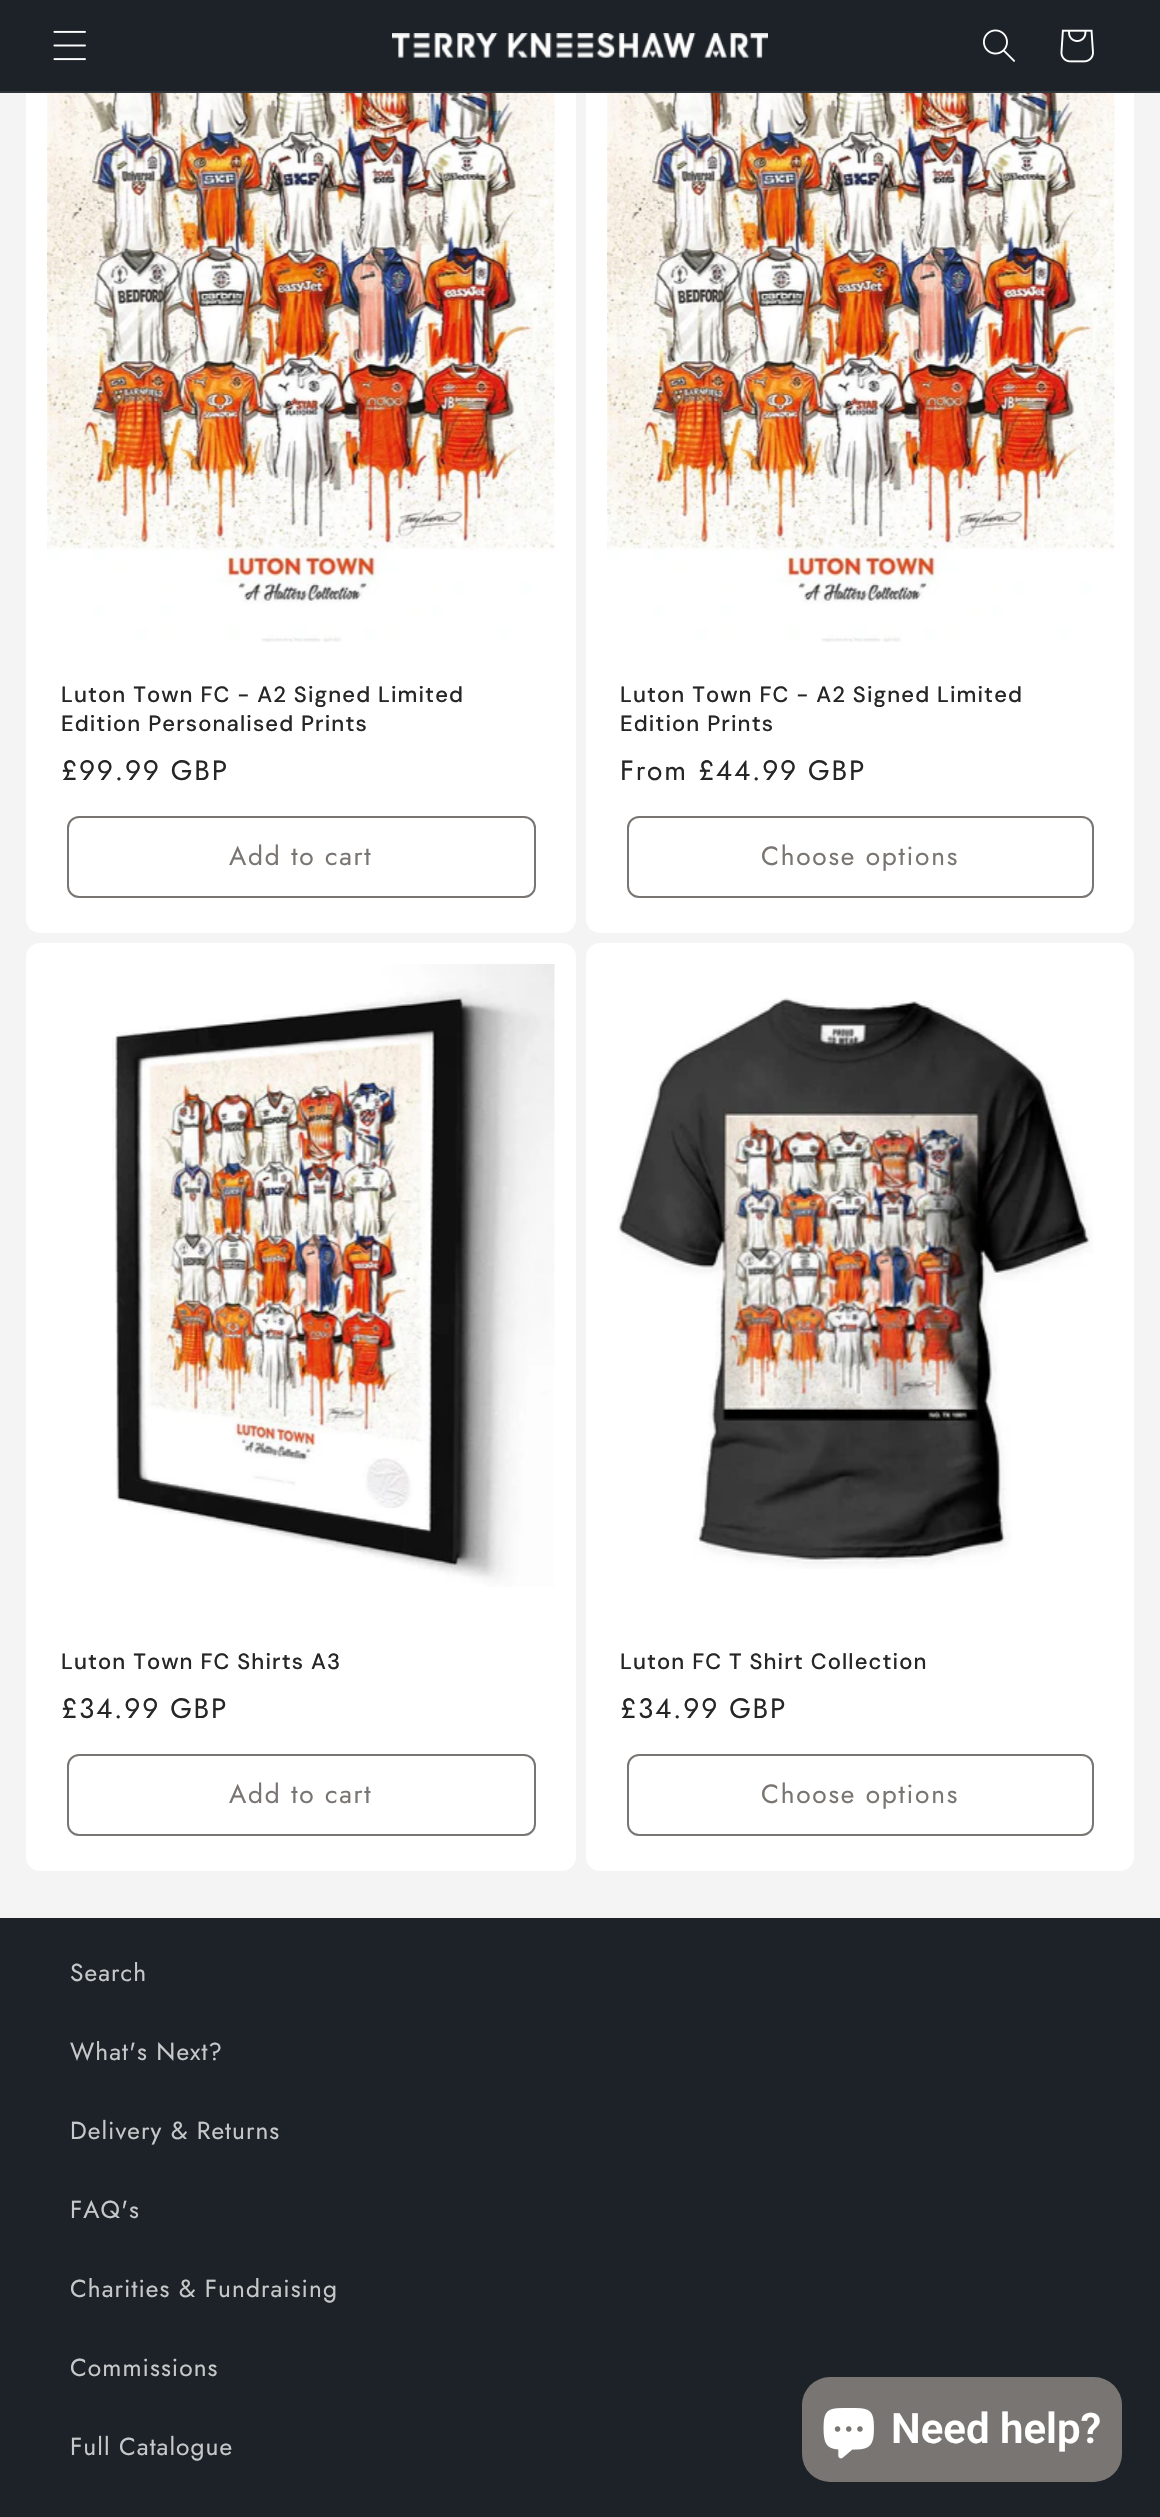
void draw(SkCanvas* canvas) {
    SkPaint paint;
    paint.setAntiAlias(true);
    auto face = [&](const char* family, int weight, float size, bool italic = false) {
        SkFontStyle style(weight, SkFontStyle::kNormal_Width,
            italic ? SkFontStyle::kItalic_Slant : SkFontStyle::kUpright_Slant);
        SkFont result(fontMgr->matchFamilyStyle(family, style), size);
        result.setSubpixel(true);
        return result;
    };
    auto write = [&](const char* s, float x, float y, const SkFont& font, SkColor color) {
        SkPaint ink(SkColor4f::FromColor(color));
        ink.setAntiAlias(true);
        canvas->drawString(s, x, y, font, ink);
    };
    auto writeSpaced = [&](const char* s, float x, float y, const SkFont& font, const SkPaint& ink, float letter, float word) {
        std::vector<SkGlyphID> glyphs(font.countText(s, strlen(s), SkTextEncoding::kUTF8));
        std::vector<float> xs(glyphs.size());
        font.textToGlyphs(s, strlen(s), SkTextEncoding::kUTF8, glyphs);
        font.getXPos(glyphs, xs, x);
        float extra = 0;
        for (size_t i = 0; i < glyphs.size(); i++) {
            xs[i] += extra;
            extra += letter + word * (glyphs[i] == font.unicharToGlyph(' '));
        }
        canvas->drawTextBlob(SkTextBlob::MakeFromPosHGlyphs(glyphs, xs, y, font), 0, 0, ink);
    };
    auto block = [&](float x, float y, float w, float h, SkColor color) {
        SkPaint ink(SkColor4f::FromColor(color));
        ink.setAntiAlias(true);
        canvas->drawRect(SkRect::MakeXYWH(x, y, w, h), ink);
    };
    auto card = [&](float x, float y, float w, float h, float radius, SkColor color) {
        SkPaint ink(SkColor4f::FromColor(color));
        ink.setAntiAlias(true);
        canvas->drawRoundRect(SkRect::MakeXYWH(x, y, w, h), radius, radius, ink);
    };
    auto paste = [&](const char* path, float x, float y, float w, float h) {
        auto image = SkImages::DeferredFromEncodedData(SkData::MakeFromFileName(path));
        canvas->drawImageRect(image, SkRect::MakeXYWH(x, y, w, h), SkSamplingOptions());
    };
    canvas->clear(SkColorSetRGB(244, 244, 244));
    card(26, -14, 550, 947, 14, SK_ColorWHITE);
    card(586, -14, 548, 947, 14, SK_ColorWHITE);
    block(0, 0, 1160, 91, SkColorSetRGB(28, 34, 40));
    block(0, 91, 1160, 2, SkColorSetRGB(46, 52, 57));
    paste("pic1.png", 53, 30, 33, 31);
    paste("pic2.png", 392, 33, 376, 25);
    paste("pic3.png", 983, 29, 32, 33);
    paste("pic4.png", 1060, 29, 34, 34);
    paste("pic5.png", 47, 93, 508, 549);
    auto kFont1 = face("DM Sans", 500, 22);
    paint.setColor(SkColorSetRGB(38, 38, 38));
    writeSpaced("Luton Town FC - A2 Signed Limited", 61, 702, kFont1, paint, 1.1f, 0);
    writeSpaced("Edition Personalised Prints", 61, 731, kFont1, paint, 1.1f, 0);
    auto kFont2 = face("Jost", 400, 28);
    writeSpaced("£99.99 GBP", 61, 780, kFont2, paint, 1.75f, 0);
    paint.setStyle(SkPaint::kStroke_Style);
    paint.setStrokeWidth(2);
    paint.setColor(SkColorSetRGB(121, 117, 114));
    canvas->drawRoundRect(SkRect::MakeXYWH(68, 817, 467, 80), 11, 11, paint);
    auto kFont3 = face("Jost", 400, 26.25f);
    paint.setStyle(SkPaint::kFill_Style);
    writeSpaced("Add to cart", 229, 865, kFont3, paint, 1.75f, 0);
    paste("pic6.png", 607, 93, 508, 549);
    paint.setColor(SkColorSetRGB(38, 38, 38));
    writeSpaced("Luton Town FC - A2 Signed Limited", 620, 702, kFont1, paint, 1.1f, 0);
    writeSpaced("Edition Prints", 620, 731, kFont1, paint, 1.1f, 0);
    writeSpaced("From £44.99 GBP", 620, 780, kFont2, paint, 1.75f, 0);
    paint.setStyle(SkPaint::kStroke_Style);
    paint.setColor(SkColorSetRGB(121, 117, 114));
    canvas->drawRoundRect(SkRect::MakeXYWH(628, 817, 465, 80), 11, 11, paint);
    paint.setStyle(SkPaint::kFill_Style);
    writeSpaced("Choose options", 761, 865, kFont3, paint, 1.75f, 0);
    card(26, 943, 550, 928, 14, SK_ColorWHITE);
    paste("pic7.png", 112, 964, 443, 623);
    paint.setColor(SkColorSetRGB(38, 38, 38));
    writeSpaced("Luton Town FC Shirts A3", 61, 1669, kFont1, paint, 1.1f, 0);
    writeSpaced("£34.99 GBP", 61, 1718, kFont2, paint, 1.75f, 0);
    paint.setStyle(SkPaint::kStroke_Style);
    paint.setColor(SkColorSetRGB(121, 117, 114));
    canvas->drawRoundRect(SkRect::MakeXYWH(68, 1755, 467, 80), 11, 11, paint);
    paint.setStyle(SkPaint::kFill_Style);
    writeSpaced("Add to cart", 229, 1803, kFont3, paint, 1.75f, 0);
    card(586, 943, 548, 928, 14, SK_ColorWHITE);
    paste("pic8.png", 617, 997, 476, 572);
    paint.setColor(SkColorSetRGB(38, 38, 38));
    writeSpaced("Luton FC T Shirt Collection", 620, 1669, kFont1, paint, 1.1f, 0);
    writeSpaced("£34.99 GBP", 620, 1718, kFont2, paint, 1.75f, 0);
    paint.setStyle(SkPaint::kStroke_Style);
    paint.setColor(SkColorSetRGB(121, 117, 114));
    canvas->drawRoundRect(SkRect::MakeXYWH(628, 1755, 465, 80), 11, 11, paint);
    paint.setStyle(SkPaint::kFill_Style);
    writeSpaced("Choose options", 761, 1803, kFont3, paint, 1.75f, 0);
    block(0, 1918, 1160, 599, SkColorSetRGB(28, 34, 40));
    auto kFont4 = face("Jost", 400, 24.5f);
    paint.setColor(SkColorSetRGB(198, 200, 201));
    writeSpaced("Search", 70, 1981, kFont4, paint, 1.05f, 0);
    writeSpaced("What's Next?", 70, 2060, kFont4, paint, 1.05f, 0);
    writeSpaced("Delivery & Returns", 70, 2139, kFont4, paint, 1.05f, 0);
    writeSpaced("FAQ's", 70, 2218, kFont4, paint, 1.05f, 0);
    writeSpaced("Charities & Fundraising", 70, 2297, kFont4, paint, 1.05f, 0);
    writeSpaced("Commissions", 70, 2376, kFont4, paint, 1.05f, 0);
    writeSpaced("Full Catalogue", 70, 2455, kFont4, paint, 1.05f, 0);
    card(802, 2377, 320, 105, 28, SkColorSetRGB(121, 117, 114));
    paste("pic9.png", 823, 2408, 51, 51);
    auto kFont5 = face("Roboto", 600, 42);
    write("Need help?", 891, 2443, kFont5, SK_ColorWHITE);
}
